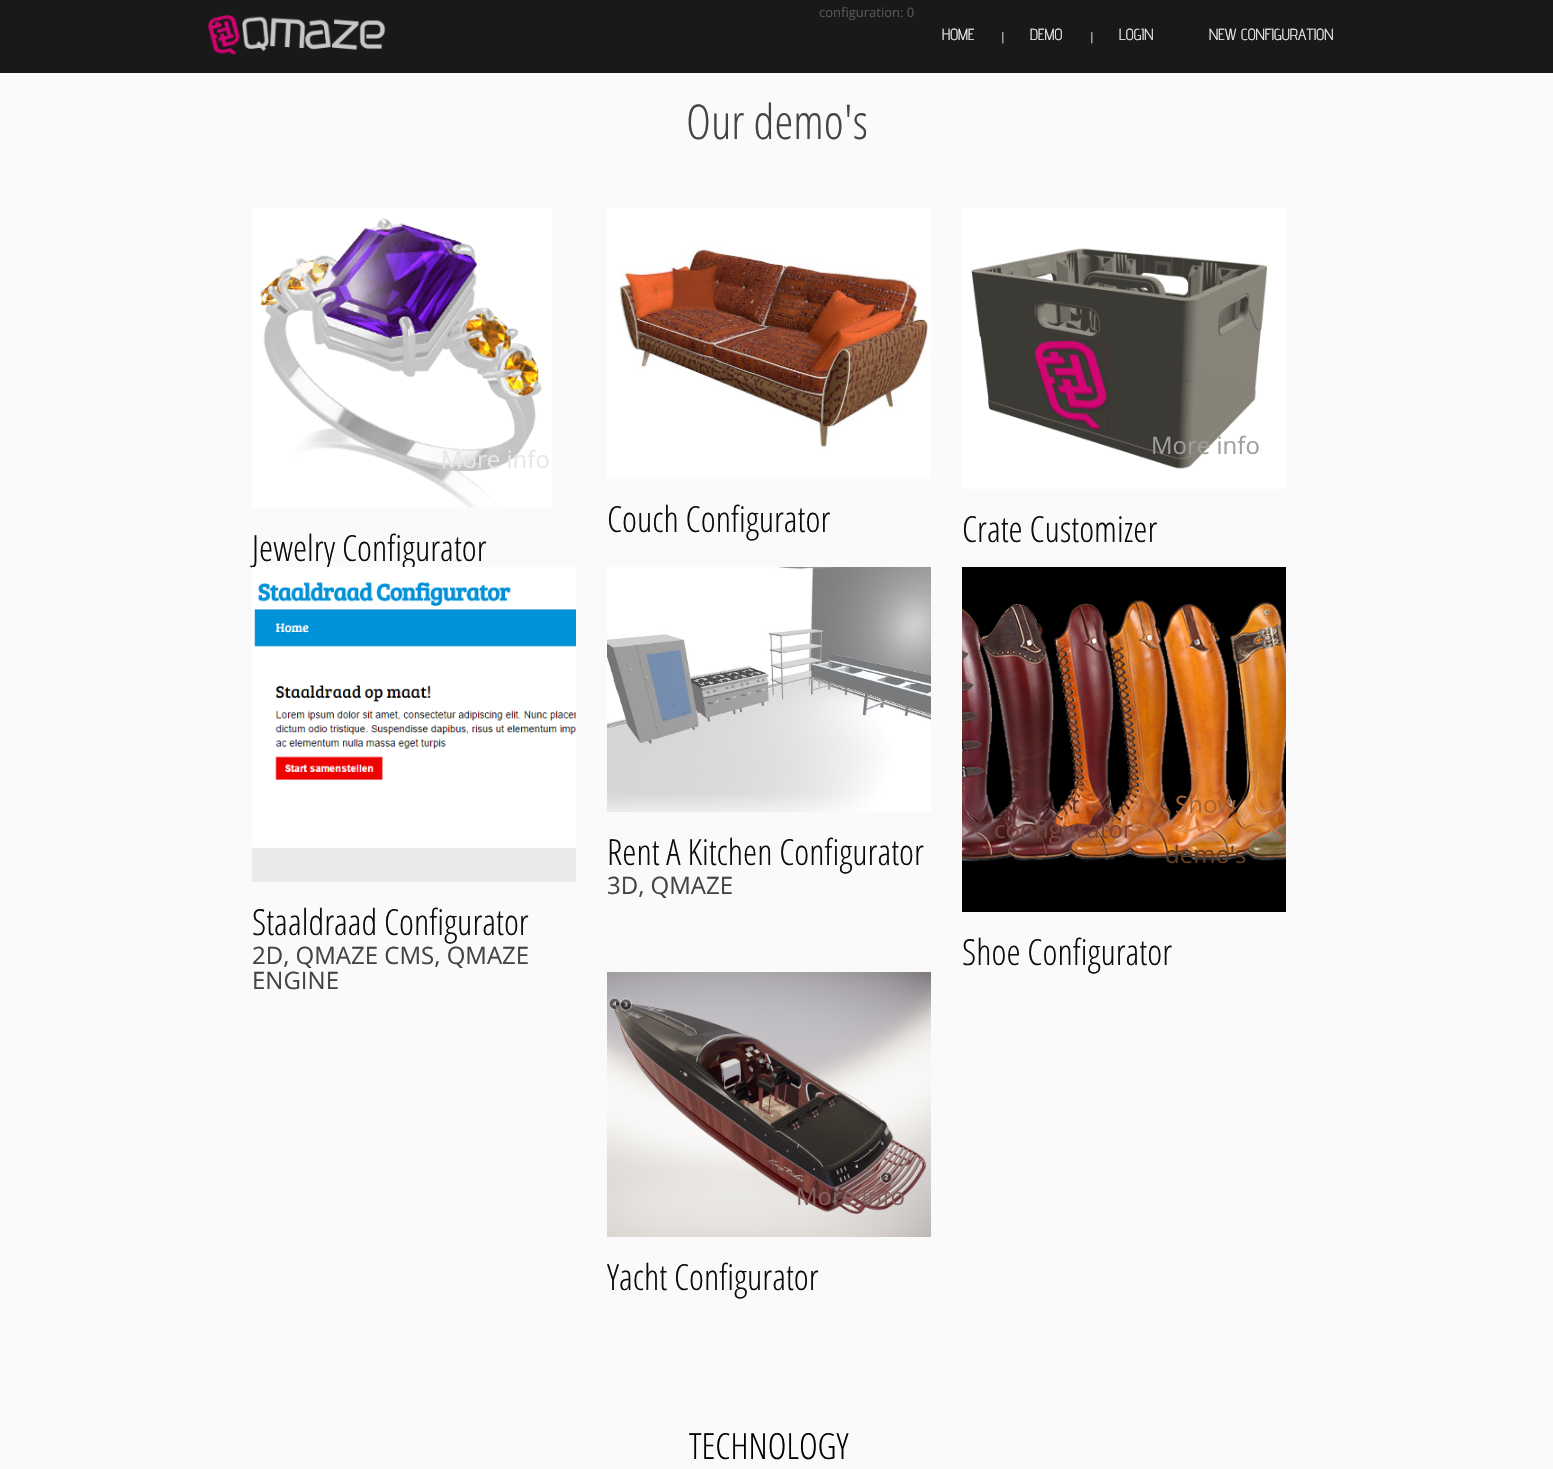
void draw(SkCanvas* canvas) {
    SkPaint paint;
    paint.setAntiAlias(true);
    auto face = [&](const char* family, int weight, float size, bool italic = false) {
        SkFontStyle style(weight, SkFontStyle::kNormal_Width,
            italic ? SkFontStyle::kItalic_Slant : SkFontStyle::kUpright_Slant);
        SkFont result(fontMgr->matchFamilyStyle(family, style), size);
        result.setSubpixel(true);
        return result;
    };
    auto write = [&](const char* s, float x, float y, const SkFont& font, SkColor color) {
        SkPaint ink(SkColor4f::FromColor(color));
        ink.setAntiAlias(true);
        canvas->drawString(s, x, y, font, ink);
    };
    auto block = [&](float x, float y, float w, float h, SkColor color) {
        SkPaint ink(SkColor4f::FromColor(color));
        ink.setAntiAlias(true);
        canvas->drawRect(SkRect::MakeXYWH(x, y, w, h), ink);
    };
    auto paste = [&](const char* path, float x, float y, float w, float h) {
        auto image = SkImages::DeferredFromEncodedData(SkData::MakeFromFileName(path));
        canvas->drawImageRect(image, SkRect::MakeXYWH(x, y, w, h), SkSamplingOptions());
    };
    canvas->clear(SkColorSetRGB(250, 250, 250));
    block(0, 0, 1553, 73, SkColorSetRGB(25, 25, 25));
    paste("pic1.png", 208, 15, 178, 41);
    auto kFont1 = face("Open Sans", 400, 13);
    write("configuration: 0", 819, 17, kFont1, SkColorSetRGB(86, 86, 86));
    auto kFont2 = face("Advent Pro", 400, 16);
    write("HOME", 942, 40, kFont2, SkColorSetRGB(239, 239, 239));
    auto kFont3 = face("Advent Pro", 400, 12);
    write("|", 1002, 42, kFont3, SkColorSetRGB(231, 231, 231));
    write("DEMO", 1030, 40, kFont2, SkColorSetRGB(239, 239, 239));
    write("|", 1091, 42, kFont3, SkColorSetRGB(231, 231, 231));
    write("LOGIN", 1119, 40, kFont2, SkColorSetRGB(239, 239, 239));
    write("NEW CONFIGURATION", 1209, 40, kFont2, SkColorSetRGB(239, 239, 239));
    auto kFont4 = face("Open Sans Condensed", 300, 48);
    write("Our demo's", 686, 139, kFont4, SkColorSetRGB(68, 68, 68));
    paste("pic2.png", 252, 208, 300, 300);
    auto kFont5 = face("Open Sans", 400, 24);
    write("More info", 441, 468, kFont5, SkColorSetRGB(231, 231, 231));
    auto kFont6 = face("Open Sans Condensed", 300, 36);
    write("Jewelry Configurator", 252, 561, kFont6, SkColorSetRGB(12, 12, 12));
    paste("pic3.png", 607, 208, 324, 271);
    write("Couch Configurator", 607, 532, kFont6, SkColorSetRGB(12, 12, 12));
    paste("pic4.png", 962, 208, 324, 281);
    write("More info", 1151, 454, kFont5, SkColorSetRGB(160, 158, 154));
    write("Crate Customizer", 962, 542, kFont6, SkColorSetRGB(12, 12, 12));
    paste("pic5.png", 607, 567, 324, 245);
    write("Rent A Kitchen Configurator", 607, 865, kFont6, SkColorSetRGB(12, 12, 12));
    write("3D, QMAZE", 607, 894, kFont5, SkColorSetRGB(68, 68, 68));
    paste("pic6.png", 962, 567, 324, 345);
    write("t", 1071, 813, kFont5, SkColorSetRGB(99, 55, 44));
    write("configurator", 994, 838, kFont5, SkColorSetRGB(123, 71, 58));
    write("Show", 1175, 813, kFont5, SkColorSetRGB(170, 98, 48));
    write("demo's", 1165, 863, kFont5, SkColorSetRGB(98, 62, 35));
    write("Shoe Configurator", 962, 965, kFont6, SkColorSetRGB(12, 12, 12));
    paste("pic7.png", 252, 567, 324, 315);
    write("Staaldraad Configurator", 252, 935, kFont6, SkColorSetRGB(12, 12, 12));
    write("2D, QMAZE CMS, QMAZE", 252, 964, kFont5, SkColorSetRGB(68, 68, 68));
    write("ENGINE", 252, 989, kFont5, SkColorSetRGB(68, 68, 68));
    paste("pic8.png", 607, 972, 324, 265);
    write("More info", 796, 1205, kFont5, SkColorSetRGB(132, 97, 95));
    write("Yacht Configurator", 607, 1290, kFont6, SkColorSetRGB(12, 12, 12));
    write("TECHNOLOGY", 689, 1459, kFont6, SK_ColorBLACK);
}
